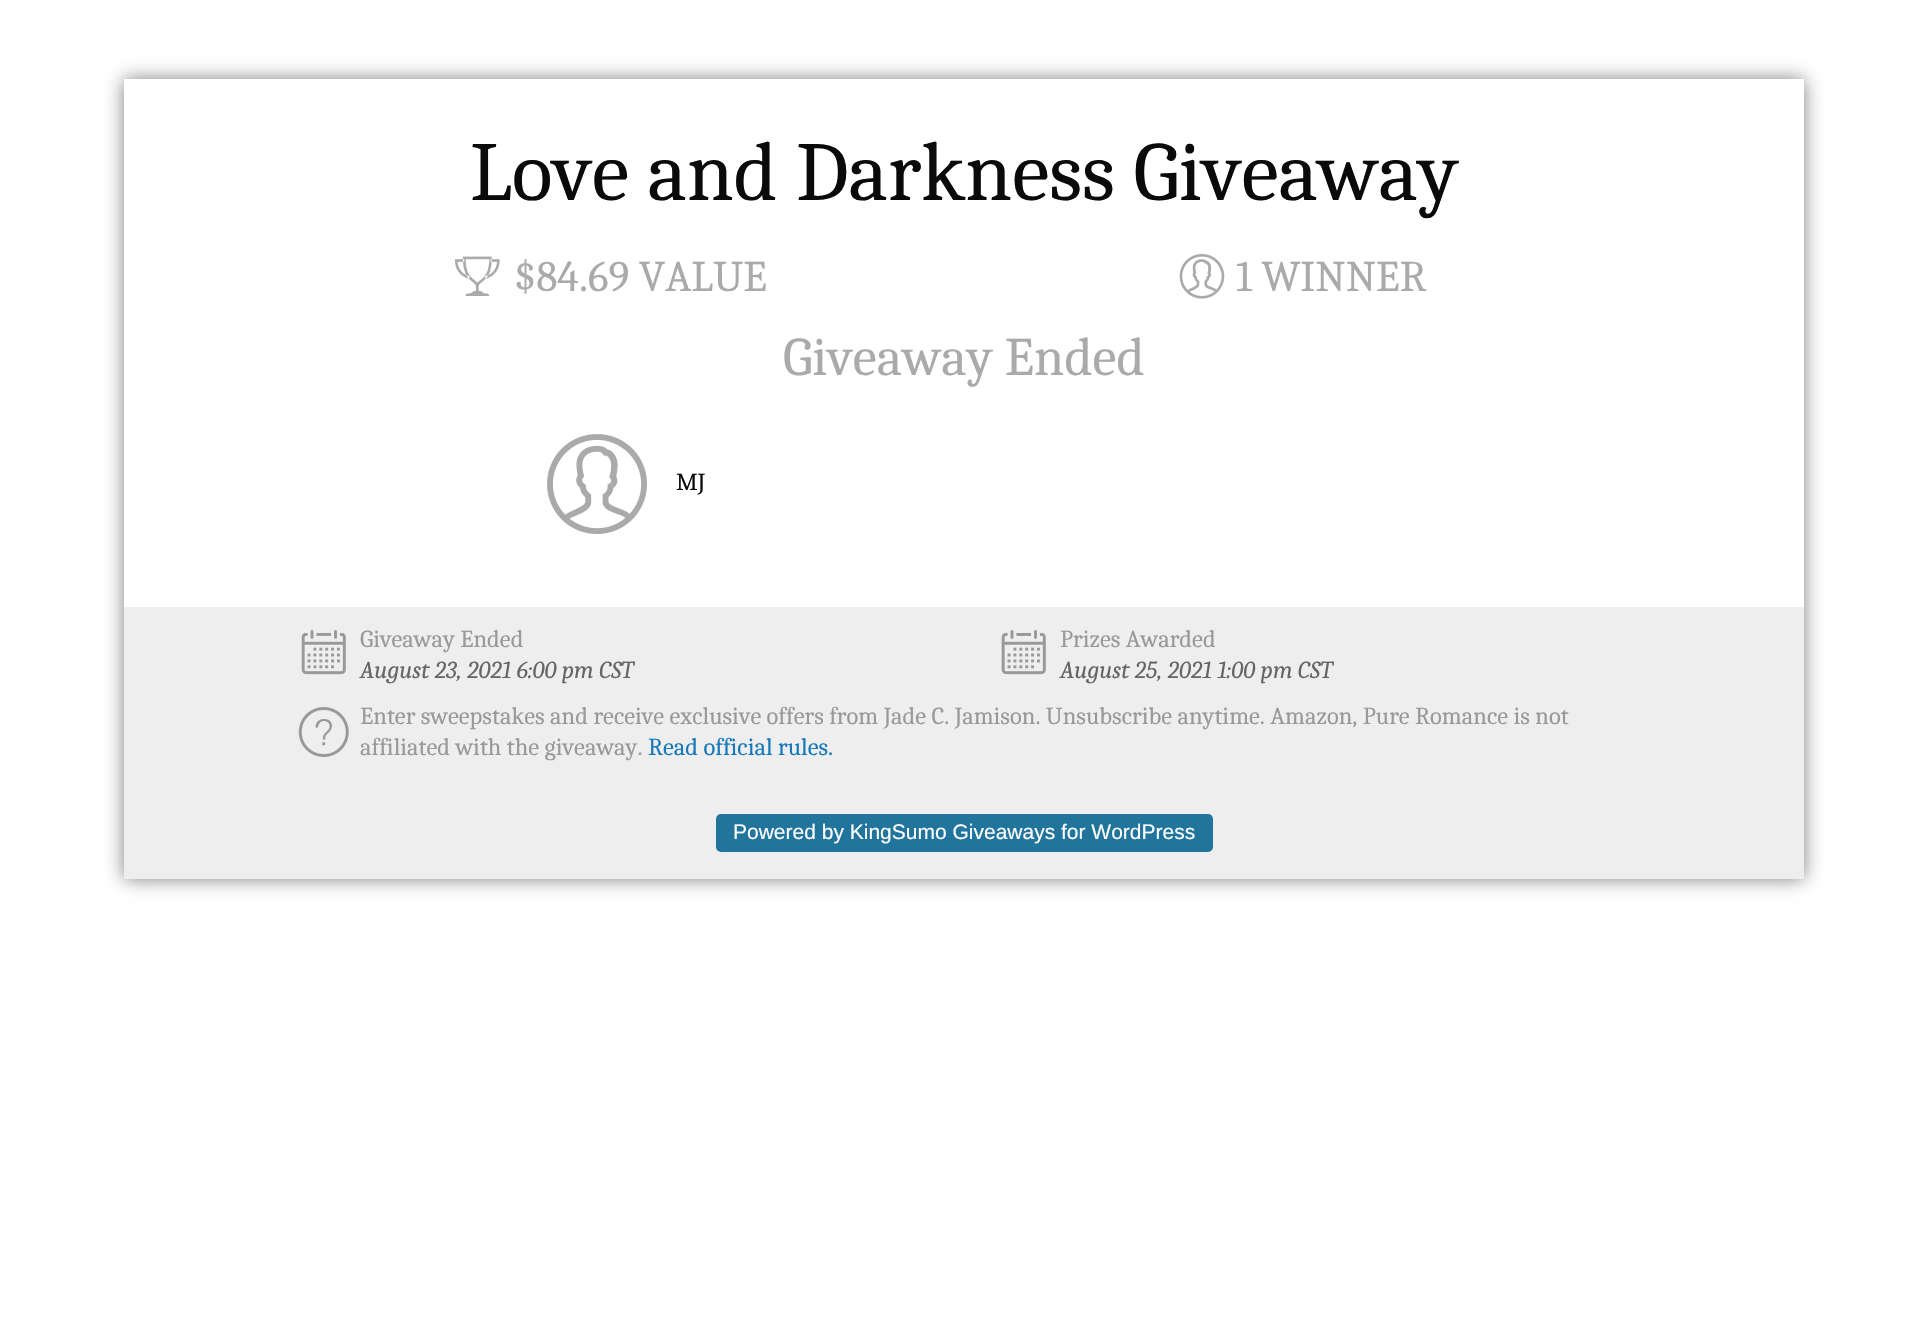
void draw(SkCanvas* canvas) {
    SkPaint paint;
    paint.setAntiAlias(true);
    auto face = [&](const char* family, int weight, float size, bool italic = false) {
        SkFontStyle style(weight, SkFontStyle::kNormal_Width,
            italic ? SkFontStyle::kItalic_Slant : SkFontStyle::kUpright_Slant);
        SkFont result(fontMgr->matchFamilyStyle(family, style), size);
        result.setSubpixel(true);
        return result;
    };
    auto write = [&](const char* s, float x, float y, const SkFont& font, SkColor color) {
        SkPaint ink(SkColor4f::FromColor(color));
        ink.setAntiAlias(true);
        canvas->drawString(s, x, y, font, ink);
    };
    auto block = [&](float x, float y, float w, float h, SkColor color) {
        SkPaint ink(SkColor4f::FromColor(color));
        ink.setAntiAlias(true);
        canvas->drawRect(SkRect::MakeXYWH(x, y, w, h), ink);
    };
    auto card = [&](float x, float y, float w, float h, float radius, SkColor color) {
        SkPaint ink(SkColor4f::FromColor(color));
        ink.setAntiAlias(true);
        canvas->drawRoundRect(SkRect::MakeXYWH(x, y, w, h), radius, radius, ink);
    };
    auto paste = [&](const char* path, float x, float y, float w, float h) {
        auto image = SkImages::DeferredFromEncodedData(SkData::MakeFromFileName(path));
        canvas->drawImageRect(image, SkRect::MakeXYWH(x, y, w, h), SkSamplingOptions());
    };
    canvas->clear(SK_ColorWHITE);
    paint.setColor(SkColorSetARGB(128, 0, 0, 0));
    paint.setMaskFilter(SkMaskFilter::MakeBlur(kNormal_SkBlurStyle, 9));
    canvas->drawRect(SkRect::MakeXYWH(124, 79, 1680, 800), paint);
    paint.setMaskFilter(nullptr);
    block(124, 79, 1680, 528, SK_ColorWHITE);
    auto kFont1 = face("Caladea", 400, 84);
    write("Love and Darkness Giveaway", 470, 200, kFont1, SkColorSetRGB(10, 10, 10));
    paste("pic1.png", 455, 256, 45, 40);
    auto kFont2 = face("Caladea", 400, 43.75f);
    write("$84.69 VALUE", 514, 291, kFont2, SkColorSetRGB(170, 170, 170));
    paste("pic2.png", 1179, 254, 46, 45);
    write("1 WINNER", 1236, 291, kFont2, SkColorSetRGB(170, 170, 170));
    auto kFont3 = face("Caladea", 400, 54.25f);
    write("Giveaway Ended", 783, 375, kFont3, SkColorSetRGB(170, 170, 170));
    paste("pic3.png", 547, 434, 100, 100);
    auto kFont4 = face("Caladea", 400, 24.5f);
    write("MJ", 676, 490, kFont4, SkColorSetRGB(10, 10, 10));
    block(124, 607, 1680, 272, SkColorSetRGB(238, 238, 238));
    paste("pic4.png", 301, 630, 45, 45);
    write("Giveaway Ended", 360, 647, kFont4, SkColorSetRGB(153, 153, 153));
    auto kFont5 = face("Caladea", 400, 24.5f, true);
    write("August 23, 2021 6:00 pm CST", 360, 678, kFont5, SkColorSetRGB(102, 102, 102));
    paste("pic4.png", 1001, 630, 45, 45);
    write("Prizes Awarded", 1060, 647, kFont4, SkColorSetRGB(153, 153, 153));
    write("August 25, 2021 1:00 pm CST", 1060, 678, kFont5, SkColorSetRGB(102, 102, 102));
    paste("pic5.png", 298, 707, 51, 50);
    write("Enter sweepstakes and receive exclusive offers from Jade C. Jamison. Unsubscribe anytime. Amazon, Pure Romance is not", 360, 724, kFont4, SkColorSetRGB(153, 153, 153));
    write("affiliated with the giveaway.", 360, 755, kFont4, SkColorSetRGB(153, 153, 153));
    write("Read official rules.", 648, 755, kFont4, SkColorSetRGB(23, 121, 186));
    card(716, 814, 497, 38, 5, SkColorSetRGB(33, 117, 156));
    auto kFont6 = face("Liberation Sans", 400, 21);
    write("Powered by KingSumo Giveaways for WordPress", 733, 839, kFont6, SK_ColorWHITE);
}
